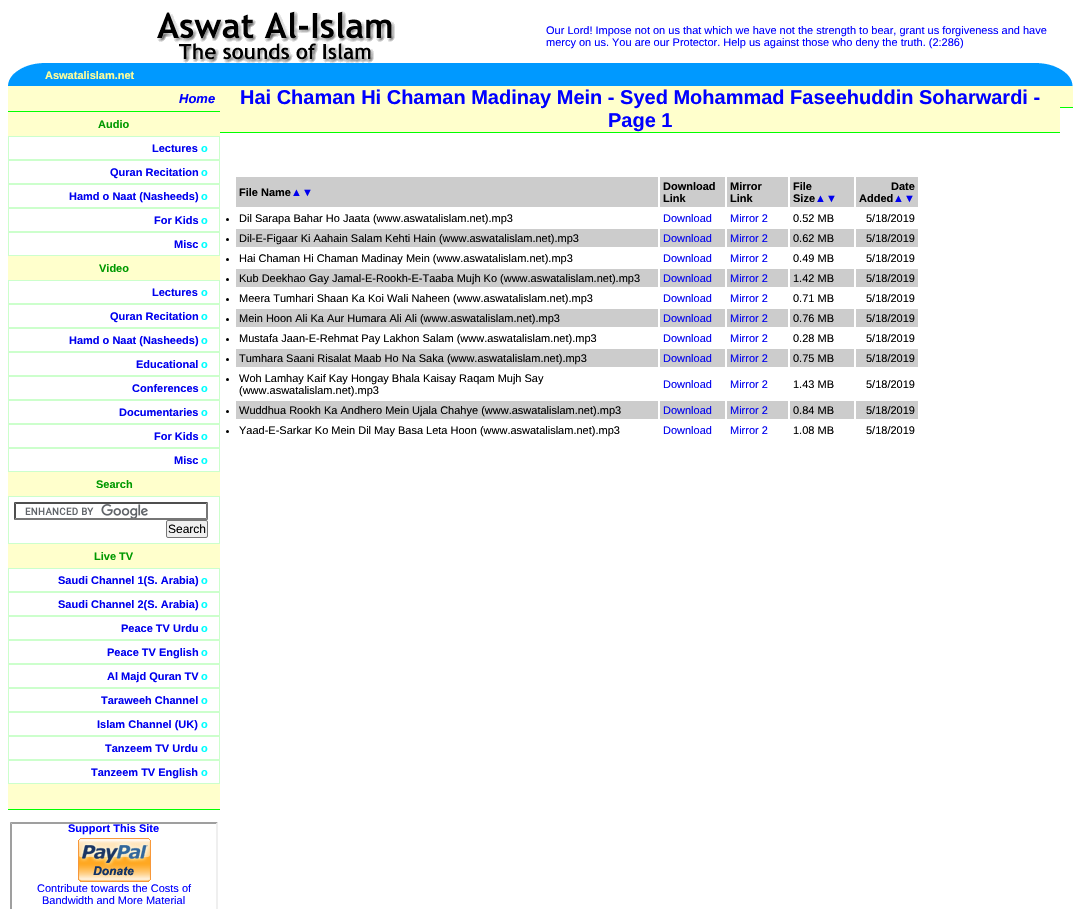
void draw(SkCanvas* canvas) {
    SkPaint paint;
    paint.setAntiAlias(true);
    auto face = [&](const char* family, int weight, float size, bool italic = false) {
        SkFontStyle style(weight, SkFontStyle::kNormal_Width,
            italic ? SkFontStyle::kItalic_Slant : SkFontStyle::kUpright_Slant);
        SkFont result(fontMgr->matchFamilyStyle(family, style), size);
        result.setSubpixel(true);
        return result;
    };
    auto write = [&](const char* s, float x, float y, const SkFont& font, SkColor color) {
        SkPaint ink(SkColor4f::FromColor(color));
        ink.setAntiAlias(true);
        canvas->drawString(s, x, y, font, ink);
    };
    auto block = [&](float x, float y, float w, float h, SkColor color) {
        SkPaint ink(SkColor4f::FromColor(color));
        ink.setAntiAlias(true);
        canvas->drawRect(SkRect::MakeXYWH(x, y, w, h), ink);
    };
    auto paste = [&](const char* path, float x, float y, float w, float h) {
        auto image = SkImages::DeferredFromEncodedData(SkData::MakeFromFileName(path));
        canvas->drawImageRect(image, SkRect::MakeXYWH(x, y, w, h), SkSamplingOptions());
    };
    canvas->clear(SK_ColorWHITE);
    paste("pic1.png", 157, 11, 238, 52);
    auto kFont1 = face("Liberation Sans", 400, 11);
    write("Our Lord! Impose not on us that which we have not the strength to bear, grant us forgiveness and have", 546, 34, kFont1, SkColorSetRGB(0, 0, 255));
    write("mercy on us. You are our Protector. Help us against those who deny the truth. (2:286)", 546, 46, kFont1, SkColorSetRGB(0, 0, 255));
    paste("pic2.png", 8, 63, 37, 23);
    block(45, 63, 990, 23, SkColorSetRGB(0, 153, 255));
    auto kFont2 = face("Liberation Sans", 700, 11);
    write("Aswatalislam.net", 45, 79, kFont2, SkColorSetRGB(255, 255, 153));
    paste("pic3.png", 1035, 63, 38, 23);
    block(8, 86, 212, 25, SkColorSetRGB(255, 255, 204));
    block(8, 111, 212, 1, SkColorSetRGB(0, 255, 0));
    auto kFont3 = face("Liberation Sans", 700, 13, true);
    write("Home", 179, 103, kFont3, SkColorSetRGB(0, 0, 255));
    block(8, 112, 212, 24, SkColorSetRGB(255, 255, 204));
    write("Audio", 98, 128, kFont2, SkColorSetRGB(0, 153, 0));
    paint.setStyle(SkPaint::kStroke_Style);
    paint.setStrokeWidth(1);
    paint.setColor(SkColorSetRGB(204, 255, 204));
    canvas->drawRect(SkRect::MakeXYWH(8.5f, 136.5f, 211, 23), paint);
    write("Lectures", 152, 152, kFont2, SkColorSetRGB(0, 0, 238));
    write("o", 201, 152, kFont2, SkColorSetRGB(0, 255, 255));
    canvas->drawRect(SkRect::MakeXYWH(8.5f, 160.5f, 211, 23), paint);
    write("Quran Recitation", 110, 176, kFont2, SkColorSetRGB(0, 0, 238));
    write("o", 201, 176, kFont2, SkColorSetRGB(0, 255, 255));
    canvas->drawRect(SkRect::MakeXYWH(8.5f, 184.5f, 211, 23), paint);
    write("Hamd o Naat (Nasheeds)", 69, 200, kFont2, SkColorSetRGB(0, 0, 238));
    write("o", 201, 200, kFont2, SkColorSetRGB(0, 255, 255));
    canvas->drawRect(SkRect::MakeXYWH(8.5f, 208.5f, 211, 23), paint);
    write("For Kids", 154, 224, kFont2, SkColorSetRGB(0, 0, 238));
    write("o", 201, 224, kFont2, SkColorSetRGB(0, 255, 255));
    canvas->drawRect(SkRect::MakeXYWH(8.5f, 232.5f, 211, 23), paint);
    write("Misc", 174, 248, kFont2, SkColorSetRGB(0, 0, 238));
    write("o", 201, 248, kFont2, SkColorSetRGB(0, 255, 255));
    block(8, 256, 212, 24, SkColorSetRGB(255, 255, 204));
    write("Video", 99, 272, kFont2, SkColorSetRGB(0, 153, 0));
    canvas->drawRect(SkRect::MakeXYWH(8.5f, 280.5f, 211, 23), paint);
    write("Lectures", 152, 296, kFont2, SkColorSetRGB(0, 0, 238));
    write("o", 201, 296, kFont2, SkColorSetRGB(0, 255, 255));
    canvas->drawRect(SkRect::MakeXYWH(8.5f, 304.5f, 211, 23), paint);
    write("Quran Recitation", 110, 320, kFont2, SkColorSetRGB(0, 0, 238));
    write("o", 201, 320, kFont2, SkColorSetRGB(0, 255, 255));
    canvas->drawRect(SkRect::MakeXYWH(8.5f, 328.5f, 211, 23), paint);
    write("Hamd o Naat (Nasheeds)", 69, 344, kFont2, SkColorSetRGB(0, 0, 238));
    write("o", 201, 344, kFont2, SkColorSetRGB(0, 255, 255));
    canvas->drawRect(SkRect::MakeXYWH(8.5f, 352.5f, 211, 23), paint);
    write("Educational", 136, 368, kFont2, SkColorSetRGB(0, 0, 238));
    write("o", 201, 368, kFont2, SkColorSetRGB(0, 255, 255));
    canvas->drawRect(SkRect::MakeXYWH(8.5f, 376.5f, 211, 23), paint);
    write("Conferences", 132, 392, kFont2, SkColorSetRGB(0, 0, 238));
    write("o", 201, 392, kFont2, SkColorSetRGB(0, 255, 255));
    canvas->drawRect(SkRect::MakeXYWH(8.5f, 400.5f, 211, 23), paint);
    write("Documentaries", 119, 416, kFont2, SkColorSetRGB(0, 0, 238));
    write("o", 201, 416, kFont2, SkColorSetRGB(0, 255, 255));
    canvas->drawRect(SkRect::MakeXYWH(8.5f, 424.5f, 211, 23), paint);
    write("For Kids", 154, 440, kFont2, SkColorSetRGB(0, 0, 238));
    write("o", 201, 440, kFont2, SkColorSetRGB(0, 255, 255));
    canvas->drawRect(SkRect::MakeXYWH(8.5f, 448.5f, 211, 23), paint);
    write("Misc", 174, 464, kFont2, SkColorSetRGB(0, 0, 238));
    write("o", 201, 464, kFont2, SkColorSetRGB(0, 255, 255));
    block(8, 472, 212, 24, SkColorSetRGB(255, 255, 204));
    write("Search", 96, 488, kFont2, SkColorSetRGB(0, 153, 0));
    canvas->drawRect(SkRect::MakeXYWH(8.5f, 496.5f, 211, 47), paint);
    paste("pic4.png", 25, 504, 123, 14);
    paint.setStyle(SkPaint::kFill_Style);
    paint.setColor(SkColorSetRGB(79, 79, 79));
    canvas->drawPath(SkPathBuilder().moveTo(14, 502).lineTo(208, 502).lineTo(206, 504).lineTo(16, 504).close().detach(), paint);
    paint.setColor(SkColorSetRGB(118, 118, 118));
    canvas->drawPath(SkPathBuilder().moveTo(208, 502).lineTo(208, 520).lineTo(206, 518).lineTo(206, 504).close().detach(), paint);
    canvas->drawPath(SkPathBuilder().moveTo(208, 520).lineTo(14, 520).lineTo(16, 518).lineTo(206, 518).close().detach(), paint);
    paint.setColor(SkColorSetRGB(79, 79, 79));
    canvas->drawPath(SkPathBuilder().moveTo(14, 520).lineTo(14, 502).lineTo(16, 504).lineTo(16, 518).close().detach(), paint);
    paint.setColor(SkColorSetRGB(239, 239, 239));
    canvas->drawRoundRect(SkRect::MakeXYWH(166.5f, 520.5f, 41, 17), 1.5f, 1.5f, paint);
    paint.setStyle(SkPaint::kStroke_Style);
    paint.setColor(SkColorSetRGB(118, 118, 118));
    canvas->drawRoundRect(SkRect::MakeXYWH(166.5f, 520.5f, 41, 17), 1.5f, 1.5f, paint);
    auto kFont4 = face("Liberation Sans", 400, 12);
    write("Search", 168, 533, kFont4, SK_ColorBLACK);
    block(8, 544, 212, 24, SkColorSetRGB(255, 255, 204));
    write("Live TV", 94, 560, kFont2, SkColorSetRGB(0, 153, 0));
    paint.setColor(SkColorSetRGB(204, 255, 204));
    canvas->drawRect(SkRect::MakeXYWH(8.5f, 568.5f, 211, 23), paint);
    write("Saudi Channel 1(S. Arabia)", 58, 584, kFont2, SkColorSetRGB(0, 0, 238));
    write("o", 201, 584, kFont2, SkColorSetRGB(0, 255, 255));
    canvas->drawRect(SkRect::MakeXYWH(8.5f, 592.5f, 211, 23), paint);
    write("Saudi Channel 2(S. Arabia)", 58, 608, kFont2, SkColorSetRGB(0, 0, 238));
    write("o", 201, 608, kFont2, SkColorSetRGB(0, 255, 255));
    canvas->drawRect(SkRect::MakeXYWH(8.5f, 616.5f, 211, 23), paint);
    write("Peace TV Urdu", 121, 632, kFont2, SkColorSetRGB(0, 0, 238));
    write("o", 201, 632, kFont2, SkColorSetRGB(0, 255, 255));
    canvas->drawRect(SkRect::MakeXYWH(8.5f, 640.5f, 211, 23), paint);
    write("Peace TV English", 107, 656, kFont2, SkColorSetRGB(0, 0, 238));
    write("o", 201, 656, kFont2, SkColorSetRGB(0, 255, 255));
    canvas->drawRect(SkRect::MakeXYWH(8.5f, 664.5f, 211, 23), paint);
    write("Al Majd Quran TV", 107, 680, kFont2, SkColorSetRGB(0, 0, 238));
    write("o", 201, 680, kFont2, SkColorSetRGB(0, 255, 255));
    canvas->drawRect(SkRect::MakeXYWH(8.5f, 688.5f, 211, 23), paint);
    write("Taraweeh Channel", 101, 704, kFont2, SkColorSetRGB(0, 0, 238));
    write("o", 201, 704, kFont2, SkColorSetRGB(0, 255, 255));
    canvas->drawRect(SkRect::MakeXYWH(8.5f, 712.5f, 211, 23), paint);
    write("Islam Channel (UK)", 97, 728, kFont2, SkColorSetRGB(0, 0, 238));
    write("o", 201, 728, kFont2, SkColorSetRGB(0, 255, 255));
    canvas->drawRect(SkRect::MakeXYWH(8.5f, 736.5f, 211, 23), paint);
    write("Tanzeem TV Urdu", 105, 752, kFont2, SkColorSetRGB(0, 0, 238));
    write("o", 201, 752, kFont2, SkColorSetRGB(0, 255, 255));
    canvas->drawRect(SkRect::MakeXYWH(8.5f, 760.5f, 211, 23), paint);
    write("Tanzeem TV English", 91, 776, kFont2, SkColorSetRGB(0, 0, 238));
    write("o", 201, 776, kFont2, SkColorSetRGB(0, 255, 255));
    block(8, 784, 212, 25, SkColorSetRGB(255, 255, 204));
    block(8, 809, 212, 1, SkColorSetRGB(0, 255, 0));
    paint.setStyle(SkPaint::kFill_Style);
    paint.setColor(SkColorSetRGB(159, 159, 159));
    canvas->drawPath(SkPathBuilder().moveTo(10, 822).lineTo(218, 822).lineTo(216, 824).lineTo(12, 824).close().detach(), paint);
    paint.setColor(SkColorSetRGB(239, 239, 239));
    canvas->drawPath(SkPathBuilder().moveTo(218, 822).lineTo(218, 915).lineTo(216, 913).lineTo(216, 824).close().detach(), paint);
    paint.setColor(SkColorSetRGB(159, 159, 159));
    canvas->drawPath(SkPathBuilder().moveTo(10, 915).lineTo(10, 822).lineTo(12, 824).lineTo(12, 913).close().detach(), paint);
    write("Support This Site", 68, 832, kFont2, SkColorSetRGB(0, 0, 255));
    paste("pic5.png", 78, 838, 73, 44);
    write("Contribute towards the Costs of", 37, 892, kFont1, SkColorSetRGB(0, 0, 255));
    write("Bandwidth and More Material", 42, 904, kFont1, SkColorSetRGB(0, 0, 255));
    block(220, 86, 840, 46, SkColorSetRGB(255, 255, 204));
    block(220, 132, 840, 1, SkColorSetRGB(0, 255, 0));
    auto kFont5 = face("Liberation Sans", 700, 20);
    write("Hai Chaman Hi Chaman Madinay Mein - Syed Mohammad Faseehuddin Soharwardi -", 240, 104, kFont5, SkColorSetRGB(0, 0, 255));
    write("Page 1", 608, 127, kFont5, SkColorSetRGB(0, 0, 255));
    block(236, 177, 682, 30, SkColorSetRGB(204, 204, 204));
    paint.setStyle(SkPaint::kStroke_Style);
    paint.setColor(SK_ColorWHITE);
    canvas->drawRect(SkRect::MakeXYWH(235.5f, 176.5f, 423, 31), paint);
    write("File Name", 239, 196, kFont2, SK_ColorBLACK);
    write("▲▼", 291, 196, kFont1, SkColorSetRGB(0, 0, 238));
    canvas->drawRect(SkRect::MakeXYWH(659.5f, 176.5f, 66, 31), paint);
    write("Download", 663, 190, kFont2, SK_ColorBLACK);
    write("Link", 663, 202, kFont2, SK_ColorBLACK);
    canvas->drawRect(SkRect::MakeXYWH(726.5f, 176.5f, 62, 31), paint);
    write("Mirror", 730, 190, kFont2, SK_ColorBLACK);
    write("Link", 730, 202, kFont2, SK_ColorBLACK);
    canvas->drawRect(SkRect::MakeXYWH(789.5f, 176.5f, 65, 31), paint);
    write("File", 793, 190, kFont2, SK_ColorBLACK);
    write("Size", 793, 202, kFont2, SK_ColorBLACK);
    write("▲▼", 815, 202, kFont1, SkColorSetRGB(0, 0, 238));
    canvas->drawRect(SkRect::MakeXYWH(855.5f, 176.5f, 63, 31), paint);
    write("Date", 891, 190, kFont2, SK_ColorBLACK);
    write("Added", 859, 202, kFont2, SK_ColorBLACK);
    write("▲▼", 893, 202, kFont1, SkColorSetRGB(0, 0, 238));
    paint.setStyle(SkPaint::kFill_Style);
    paint.setColor(SK_ColorBLACK);
    canvas->drawCircle(227.5f, 219.5f, 1.5f, paint);
    write("Dil Sarapa Bahar Ho Jaata (www.aswatalislam.net).mp3", 239, 222, kFont1, SK_ColorBLACK);
    write("Download", 663, 222, kFont1, SkColorSetRGB(0, 0, 238));
    write("Mirror 2", 730, 222, kFont1, SkColorSetRGB(0, 0, 238));
    write("0.52 MB", 793, 222, kFont1, SK_ColorBLACK);
    write("5/18/2019", 866, 222, kFont1, SK_ColorBLACK);
    block(236, 229, 682, 18, SkColorSetRGB(204, 204, 204));
    paint.setStyle(SkPaint::kStroke_Style);
    paint.setColor(SK_ColorWHITE);
    canvas->drawRect(SkRect::MakeXYWH(235.5f, 228.5f, 423, 19), paint);
    paint.setStyle(SkPaint::kFill_Style);
    paint.setColor(SK_ColorBLACK);
    canvas->drawCircle(227.5f, 239.5f, 1.5f, paint);
    write("Dil-E-Figaar Ki Aahain Salam Kehti Hain (www.aswatalislam.net).mp3", 239, 242, kFont1, SK_ColorBLACK);
    paint.setStyle(SkPaint::kStroke_Style);
    paint.setColor(SK_ColorWHITE);
    canvas->drawRect(SkRect::MakeXYWH(659.5f, 228.5f, 66, 19), paint);
    write("Download", 663, 242, kFont1, SkColorSetRGB(0, 0, 238));
    canvas->drawRect(SkRect::MakeXYWH(726.5f, 228.5f, 62, 19), paint);
    write("Mirror 2", 730, 242, kFont1, SkColorSetRGB(0, 0, 238));
    canvas->drawRect(SkRect::MakeXYWH(789.5f, 228.5f, 65, 19), paint);
    write("0.62 MB", 793, 242, kFont1, SK_ColorBLACK);
    canvas->drawRect(SkRect::MakeXYWH(855.5f, 228.5f, 63, 19), paint);
    write("5/18/2019", 866, 242, kFont1, SK_ColorBLACK);
    paint.setStyle(SkPaint::kFill_Style);
    paint.setColor(SK_ColorBLACK);
    canvas->drawCircle(227.5f, 259.5f, 1.5f, paint);
    write("Hai Chaman Hi Chaman Madinay Mein (www.aswatalislam.net).mp3", 239, 262, kFont1, SK_ColorBLACK);
    write("Download", 663, 262, kFont1, SkColorSetRGB(0, 0, 238));
    write("Mirror 2", 730, 262, kFont1, SkColorSetRGB(0, 0, 238));
    write("0.49 MB", 793, 262, kFont1, SK_ColorBLACK);
    write("5/18/2019", 866, 262, kFont1, SK_ColorBLACK);
    block(236, 269, 682, 18, SkColorSetRGB(204, 204, 204));
    paint.setStyle(SkPaint::kStroke_Style);
    paint.setColor(SK_ColorWHITE);
    canvas->drawRect(SkRect::MakeXYWH(235.5f, 268.5f, 423, 19), paint);
    paint.setStyle(SkPaint::kFill_Style);
    paint.setColor(SK_ColorBLACK);
    canvas->drawCircle(227.5f, 279.5f, 1.5f, paint);
    write("Kub Deekhao Gay Jamal-E-Rookh-E-Taaba Mujh Ko (www.aswatalislam.net).mp3", 239, 282, kFont1, SK_ColorBLACK);
    paint.setStyle(SkPaint::kStroke_Style);
    paint.setColor(SK_ColorWHITE);
    canvas->drawRect(SkRect::MakeXYWH(659.5f, 268.5f, 66, 19), paint);
    write("Download", 663, 282, kFont1, SkColorSetRGB(0, 0, 238));
    canvas->drawRect(SkRect::MakeXYWH(726.5f, 268.5f, 62, 19), paint);
    write("Mirror 2", 730, 282, kFont1, SkColorSetRGB(0, 0, 238));
    canvas->drawRect(SkRect::MakeXYWH(789.5f, 268.5f, 65, 19), paint);
    write("1.42 MB", 793, 282, kFont1, SK_ColorBLACK);
    canvas->drawRect(SkRect::MakeXYWH(855.5f, 268.5f, 63, 19), paint);
    write("5/18/2019", 866, 282, kFont1, SK_ColorBLACK);
    paint.setStyle(SkPaint::kFill_Style);
    paint.setColor(SK_ColorBLACK);
    canvas->drawCircle(227.5f, 299.5f, 1.5f, paint);
    write("Meera Tumhari Shaan Ka Koi Wali Naheen (www.aswatalislam.net).mp3", 239, 302, kFont1, SK_ColorBLACK);
    write("Download", 663, 302, kFont1, SkColorSetRGB(0, 0, 238));
    write("Mirror 2", 730, 302, kFont1, SkColorSetRGB(0, 0, 238));
    write("0.71 MB", 793, 302, kFont1, SK_ColorBLACK);
    write("5/18/2019", 866, 302, kFont1, SK_ColorBLACK);
    block(236, 309, 682, 18, SkColorSetRGB(204, 204, 204));
    paint.setStyle(SkPaint::kStroke_Style);
    paint.setColor(SK_ColorWHITE);
    canvas->drawRect(SkRect::MakeXYWH(235.5f, 308.5f, 423, 19), paint);
    paint.setStyle(SkPaint::kFill_Style);
    paint.setColor(SK_ColorBLACK);
    canvas->drawCircle(227.5f, 319.5f, 1.5f, paint);
    write("Mein Hoon Ali Ka Aur Humara Ali Ali (www.aswatalislam.net).mp3", 239, 322, kFont1, SK_ColorBLACK);
    paint.setStyle(SkPaint::kStroke_Style);
    paint.setColor(SK_ColorWHITE);
    canvas->drawRect(SkRect::MakeXYWH(659.5f, 308.5f, 66, 19), paint);
    write("Download", 663, 322, kFont1, SkColorSetRGB(0, 0, 238));
    canvas->drawRect(SkRect::MakeXYWH(726.5f, 308.5f, 62, 19), paint);
    write("Mirror 2", 730, 322, kFont1, SkColorSetRGB(0, 0, 238));
    canvas->drawRect(SkRect::MakeXYWH(789.5f, 308.5f, 65, 19), paint);
    write("0.76 MB", 793, 322, kFont1, SK_ColorBLACK);
    canvas->drawRect(SkRect::MakeXYWH(855.5f, 308.5f, 63, 19), paint);
    write("5/18/2019", 866, 322, kFont1, SK_ColorBLACK);
    paint.setStyle(SkPaint::kFill_Style);
    paint.setColor(SK_ColorBLACK);
    canvas->drawCircle(227.5f, 339.5f, 1.5f, paint);
    write("Mustafa Jaan-E-Rehmat Pay Lakhon Salam (www.aswatalislam.net).mp3", 239, 342, kFont1, SK_ColorBLACK);
    write("Download", 663, 342, kFont1, SkColorSetRGB(0, 0, 238));
    write("Mirror 2", 730, 342, kFont1, SkColorSetRGB(0, 0, 238));
    write("0.28 MB", 793, 342, kFont1, SK_ColorBLACK);
    write("5/18/2019", 866, 342, kFont1, SK_ColorBLACK);
    block(236, 349, 682, 18, SkColorSetRGB(204, 204, 204));
    paint.setStyle(SkPaint::kStroke_Style);
    paint.setColor(SK_ColorWHITE);
    canvas->drawRect(SkRect::MakeXYWH(235.5f, 348.5f, 423, 19), paint);
    paint.setStyle(SkPaint::kFill_Style);
    paint.setColor(SK_ColorBLACK);
    canvas->drawCircle(227.5f, 359.5f, 1.5f, paint);
    write("Tumhara Saani Risalat Maab Ho Na Saka (www.aswatalislam.net).mp3", 239, 362, kFont1, SK_ColorBLACK);
    paint.setStyle(SkPaint::kStroke_Style);
    paint.setColor(SK_ColorWHITE);
    canvas->drawRect(SkRect::MakeXYWH(659.5f, 348.5f, 66, 19), paint);
    write("Download", 663, 362, kFont1, SkColorSetRGB(0, 0, 238));
    canvas->drawRect(SkRect::MakeXYWH(726.5f, 348.5f, 62, 19), paint);
    write("Mirror 2", 730, 362, kFont1, SkColorSetRGB(0, 0, 238));
    canvas->drawRect(SkRect::MakeXYWH(789.5f, 348.5f, 65, 19), paint);
    write("0.75 MB", 793, 362, kFont1, SK_ColorBLACK);
    canvas->drawRect(SkRect::MakeXYWH(855.5f, 348.5f, 63, 19), paint);
    write("5/18/2019", 866, 362, kFont1, SK_ColorBLACK);
    paint.setStyle(SkPaint::kFill_Style);
    paint.setColor(SK_ColorBLACK);
    canvas->drawCircle(227.5f, 379.5f, 1.5f, paint);
    write("Woh Lamhay Kaif Kay Hongay Bhala Kaisay Raqam Mujh Say", 239, 382, kFont1, SK_ColorBLACK);
    write("(www.aswatalislam.net).mp3", 239, 394, kFont1, SK_ColorBLACK);
    write("Download", 663, 388, kFont1, SkColorSetRGB(0, 0, 238));
    write("Mirror 2", 730, 388, kFont1, SkColorSetRGB(0, 0, 238));
    write("1.43 MB", 793, 388, kFont1, SK_ColorBLACK);
    write("5/18/2019", 866, 388, kFont1, SK_ColorBLACK);
    block(236, 401, 682, 18, SkColorSetRGB(204, 204, 204));
    paint.setStyle(SkPaint::kStroke_Style);
    paint.setColor(SK_ColorWHITE);
    canvas->drawRect(SkRect::MakeXYWH(235.5f, 400.5f, 423, 19), paint);
    paint.setStyle(SkPaint::kFill_Style);
    paint.setColor(SK_ColorBLACK);
    canvas->drawCircle(227.5f, 411.5f, 1.5f, paint);
    write("Wuddhua Rookh Ka Andhero Mein Ujala Chahye (www.aswatalislam.net).mp3", 239, 414, kFont1, SK_ColorBLACK);
    paint.setStyle(SkPaint::kStroke_Style);
    paint.setColor(SK_ColorWHITE);
    canvas->drawRect(SkRect::MakeXYWH(659.5f, 400.5f, 66, 19), paint);
    write("Download", 663, 414, kFont1, SkColorSetRGB(0, 0, 238));
    canvas->drawRect(SkRect::MakeXYWH(726.5f, 400.5f, 62, 19), paint);
    write("Mirror 2", 730, 414, kFont1, SkColorSetRGB(0, 0, 238));
    canvas->drawRect(SkRect::MakeXYWH(789.5f, 400.5f, 65, 19), paint);
    write("0.84 MB", 793, 414, kFont1, SK_ColorBLACK);
    canvas->drawRect(SkRect::MakeXYWH(855.5f, 400.5f, 63, 19), paint);
    write("5/18/2019", 866, 414, kFont1, SK_ColorBLACK);
    paint.setStyle(SkPaint::kFill_Style);
    paint.setColor(SK_ColorBLACK);
    canvas->drawCircle(227.5f, 431.5f, 1.5f, paint);
    write("Yaad-E-Sarkar Ko Mein Dil May Basa Leta Hoon (www.aswatalislam.net).mp3", 239, 434, kFont1, SK_ColorBLACK);
    write("Download", 663, 434, kFont1, SkColorSetRGB(0, 0, 238));
    write("Mirror 2", 730, 434, kFont1, SkColorSetRGB(0, 0, 238));
    write("1.08 MB", 793, 434, kFont1, SK_ColorBLACK);
    write("5/18/2019", 866, 434, kFont1, SK_ColorBLACK);
    block(1060, 86, 13, 21, SkColorSetRGB(255, 255, 204));
    block(1060, 107, 13, 1, SkColorSetRGB(0, 255, 0));
}
